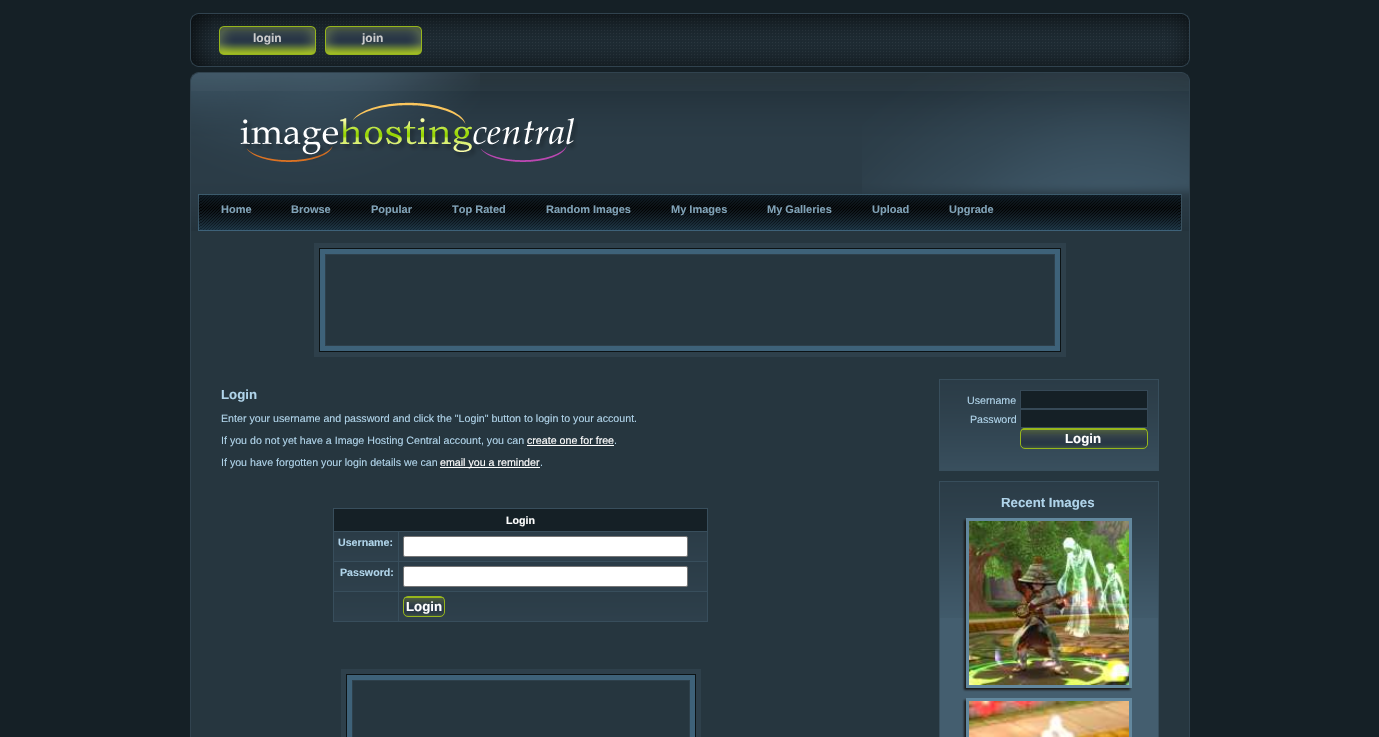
void draw(SkCanvas* canvas) {
    SkPaint paint;
    paint.setAntiAlias(true);
    auto face = [&](const char* family, int weight, float size, bool italic = false) {
        SkFontStyle style(weight, SkFontStyle::kNormal_Width,
            italic ? SkFontStyle::kItalic_Slant : SkFontStyle::kUpright_Slant);
        SkFont result(fontMgr->matchFamilyStyle(family, style), size);
        result.setSubpixel(true);
        return result;
    };
    auto write = [&](const char* s, float x, float y, const SkFont& font, SkColor color) {
        SkPaint ink(SkColor4f::FromColor(color));
        ink.setAntiAlias(true);
        canvas->drawString(s, x, y, font, ink);
    };
    auto block = [&](float x, float y, float w, float h, SkColor color) {
        SkPaint ink(SkColor4f::FromColor(color));
        ink.setAntiAlias(true);
        canvas->drawRect(SkRect::MakeXYWH(x, y, w, h), ink);
    };
    auto paste = [&](const char* path, float x, float y, float w, float h) {
        auto image = SkImages::DeferredFromEncodedData(SkData::MakeFromFileName(path));
        canvas->drawImageRect(image, SkRect::MakeXYWH(x, y, w, h), SkSamplingOptions());
    };
    canvas->clear(SkColorSetRGB(21, 32, 38));
    paste("pic1.png", 212, 13, 952, 54);
    paste("pic2.png", 190, 13, 22, 54);
    paste("pic3.png", 219, 26, 97, 29);
    auto kFont1 = face("Liberation Sans", 700, 12);
    write("login", 253, 42, kFont1, SkColorSetRGB(204, 204, 204));
    paste("pic4.png", 325, 26, 97, 29);
    write("join", 362, 42, kFont1, SkColorSetRGB(204, 204, 204));
    paste("pic5.png", 1164, 13, 26, 54);
    paste("pic6.png", 480, 72, 382, 122);
    paste("pic7.png", 190, 72, 290, 122);
    paste("pic8.png", 862, 72, 328, 122);
    paste("pic9.png", 240, 102, 338, 60);
    paste("pic10.png", 201, 194, 978, 37);
    paste("pic11.png", 190, 194, 11, 37);
    auto kFont2 = face("Liberation Sans", 700, 11);
    write("Home", 221, 213, kFont2, SkColorSetRGB(129, 163, 184));
    write("Browse", 291, 213, kFont2, SkColorSetRGB(129, 163, 184));
    write("Popular", 371, 213, kFont2, SkColorSetRGB(129, 163, 184));
    write("Top Rated", 452, 213, kFont2, SkColorSetRGB(129, 163, 184));
    write("Random Images", 546, 213, kFont2, SkColorSetRGB(129, 163, 184));
    write("My Images", 671, 213, kFont2, SkColorSetRGB(129, 163, 184));
    write("My Galleries", 767, 213, kFont2, SkColorSetRGB(129, 163, 184));
    write("Upload", 872, 213, kFont2, SkColorSetRGB(129, 163, 184));
    write("Upgrade", 949, 213, kFont2, SkColorSetRGB(129, 163, 184));
    paste("pic12.png", 1179, 194, 11, 37);
    block(191, 231, 998, 506, SkColorSetRGB(38, 54, 63));
    block(1189, 231, 1, 506, SkColorSetRGB(49, 67, 79));
    block(190, 231, 1, 506, SkColorSetRGB(49, 67, 79));
    paste("pic13.png", 314, 243, 752, 114);
    auto kFont3 = face("Liberation Sans", 700, 13.25f);
    write("Login", 221, 399, kFont3, SkColorSetRGB(176, 212, 234));
    auto kFont4 = face("Liberation Sans", 400, 10.65f);
    write("Enter your username and password and click the \"Login\" button to login to your account.", 221, 422, kFont4, SkColorSetRGB(176, 212, 234));
    write("If you do not yet have a Image Hosting Central account, you can", 221, 444, kFont4, SkColorSetRGB(176, 212, 234));
    write("create one for free", 527, 444, kFont4, SK_ColorWHITE);
    block(527, 445, 87, 1, SK_ColorWHITE);
    write(".", 614, 444, kFont4, SkColorSetRGB(176, 212, 234));
    write("If you have forgotten your login details we can", 221, 466, kFont4, SkColorSetRGB(176, 212, 234));
    block(440, 467, 100, 1, SK_ColorWHITE);
    write("email you a reminder", 440, 466, kFont4, SK_ColorWHITE);
    write(".", 540, 466, kFont4, SkColorSetRGB(176, 212, 234));
    block(333, 508, 375, 114, SkColorSetRGB(56, 78, 92));
    block(334, 509, 373, 22, SkColorSetRGB(21, 32, 38));
    auto kFont5 = face("Liberation Sans", 700, 10.65f);
    write("Login", 506, 524, kFont5, SK_ColorWHITE);
    paste("pic14.png", 334, 532, 64, 29);
    write("Username:", 338, 546, kFont5, SkColorSetRGB(176, 212, 234));
    paste("pic15.png", 399, 532, 308, 29);
    paint.setColor(SK_ColorWHITE);
    canvas->drawRoundRect(SkRect::MakeXYWH(403.5f, 536.5f, 284, 20), 1.5f, 1.5f, paint);
    paint.setStyle(SkPaint::kStroke_Style);
    paint.setStrokeWidth(1);
    paint.setColor(SkColorSetRGB(118, 118, 118));
    canvas->drawRoundRect(SkRect::MakeXYWH(403.5f, 536.5f, 284, 20), 1.5f, 1.5f, paint);
    paste("pic14.png", 334, 562, 64, 29);
    write("Password:", 340, 576, kFont5, SkColorSetRGB(176, 212, 234));
    paste("pic15.png", 399, 562, 308, 29);
    paint.setStyle(SkPaint::kFill_Style);
    paint.setColor(SK_ColorWHITE);
    canvas->drawRoundRect(SkRect::MakeXYWH(403.5f, 566.5f, 284, 20), 1.5f, 1.5f, paint);
    paint.setStyle(SkPaint::kStroke_Style);
    paint.setColor(SkColorSetRGB(118, 118, 118));
    canvas->drawRoundRect(SkRect::MakeXYWH(403.5f, 566.5f, 284, 20), 1.5f, 1.5f, paint);
    paste("pic14.png", 334, 592, 64, 29);
    paste("pic15.png", 399, 592, 308, 29);
    paste("pic16.png", 403, 597, 42, 20);
    paint.setColor(SkColorSetRGB(151, 182, 28));
    canvas->drawRoundRect(SkRect::MakeXYWH(403.5f, 596.5f, 41, 20), 4.5f, 4.5f, paint);
    write("Login", 406, 611, kFont3, SK_ColorWHITE);
    paste("pic17.png", 341, 669, 360, 68);
    paste("pic18.png", 940, 380, 218, 90);
    paint.setColor(SkColorSetRGB(56, 78, 92));
    canvas->drawRect(SkRect::MakeXYWH(939.5f, 379.5f, 219, 91), paint);
    write("Username", 967, 404, kFont4, SkColorSetRGB(176, 212, 234));
    paint.setStyle(SkPaint::kFill_Style);
    paint.setColor(SkColorSetRGB(21, 32, 38));
    canvas->drawRect(SkRect::MakeXYWH(1020.5f, 390.5f, 127, 18), paint);
    paint.setStyle(SkPaint::kStroke_Style);
    paint.setColor(SkColorSetRGB(54, 73, 87));
    canvas->drawRect(SkRect::MakeXYWH(1020.5f, 390.5f, 127, 18), paint);
    write("Password", 970, 423, kFont4, SkColorSetRGB(176, 212, 234));
    paint.setStyle(SkPaint::kFill_Style);
    paint.setColor(SkColorSetRGB(21, 32, 38));
    canvas->drawRect(SkRect::MakeXYWH(1020.5f, 409.5f, 127, 18), paint);
    paint.setStyle(SkPaint::kStroke_Style);
    paint.setColor(SkColorSetRGB(54, 73, 87));
    canvas->drawRect(SkRect::MakeXYWH(1020.5f, 409.5f, 127, 18), paint);
    paste("pic19.png", 1020, 428, 128, 21);
    paint.setColor(SkColorSetRGB(151, 182, 28));
    canvas->drawRoundRect(SkRect::MakeXYWH(1020.5f, 428.5f, 127, 20), 4.5f, 4.5f, paint);
    write("Login", 1065, 443, kFont3, SK_ColorWHITE);
    block(940, 618, 218, 119, SkColorSetRGB(68, 94, 111));
    paste("pic20.png", 940, 482, 218, 136);
    paint.setColor(SkColorSetRGB(56, 78, 92));
    canvas->drawRect(SkRect::MakeXYWH(939.5f, 481.5f, 219, 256), paint);
    write("Recent Images", 1001, 507, kFont3, SkColorSetRGB(176, 212, 234));
    paint.setStyle(SkPaint::kFill_Style);
    paint.setColor(SkColorSetRGB(26, 26, 26));
    paint.setMaskFilter(SkMaskFilter::MakeBlur(kNormal_SkBlurStyle, 1));
    canvas->drawRect(SkRect::MakeXYWH(964, 520, 166, 170), paint);
    paint.setMaskFilter(nullptr);
    paint.setStyle(SkPaint::kStroke_Style);
    paint.setStrokeWidth(3);
    paint.setColor(SkColorSetRGB(99, 136, 158));
    canvas->drawRect(SkRect::MakeXYWH(967.5f, 519.5f, 163, 167), paint);
    paste("pic21.png", 969, 521, 160, 164);
    paint.setStyle(SkPaint::kFill_Style);
    paint.setColor(SkColorSetRGB(26, 26, 26));
    paint.setMaskFilter(SkMaskFilter::MakeBlur(kNormal_SkBlurStyle, 1));
    canvas->drawRect(SkRect::MakeXYWH(964, 700, 166, 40), paint);
    paint.setMaskFilter(nullptr);
    paint.setStyle(SkPaint::kStroke_Style);
    paint.setColor(SkColorSetRGB(99, 136, 158));
    canvas->drawRect(SkRect::MakeXYWH(967.5f, 699.5f, 163, 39), paint);
    paste("pic22.png", 969, 701, 160, 36);
}
